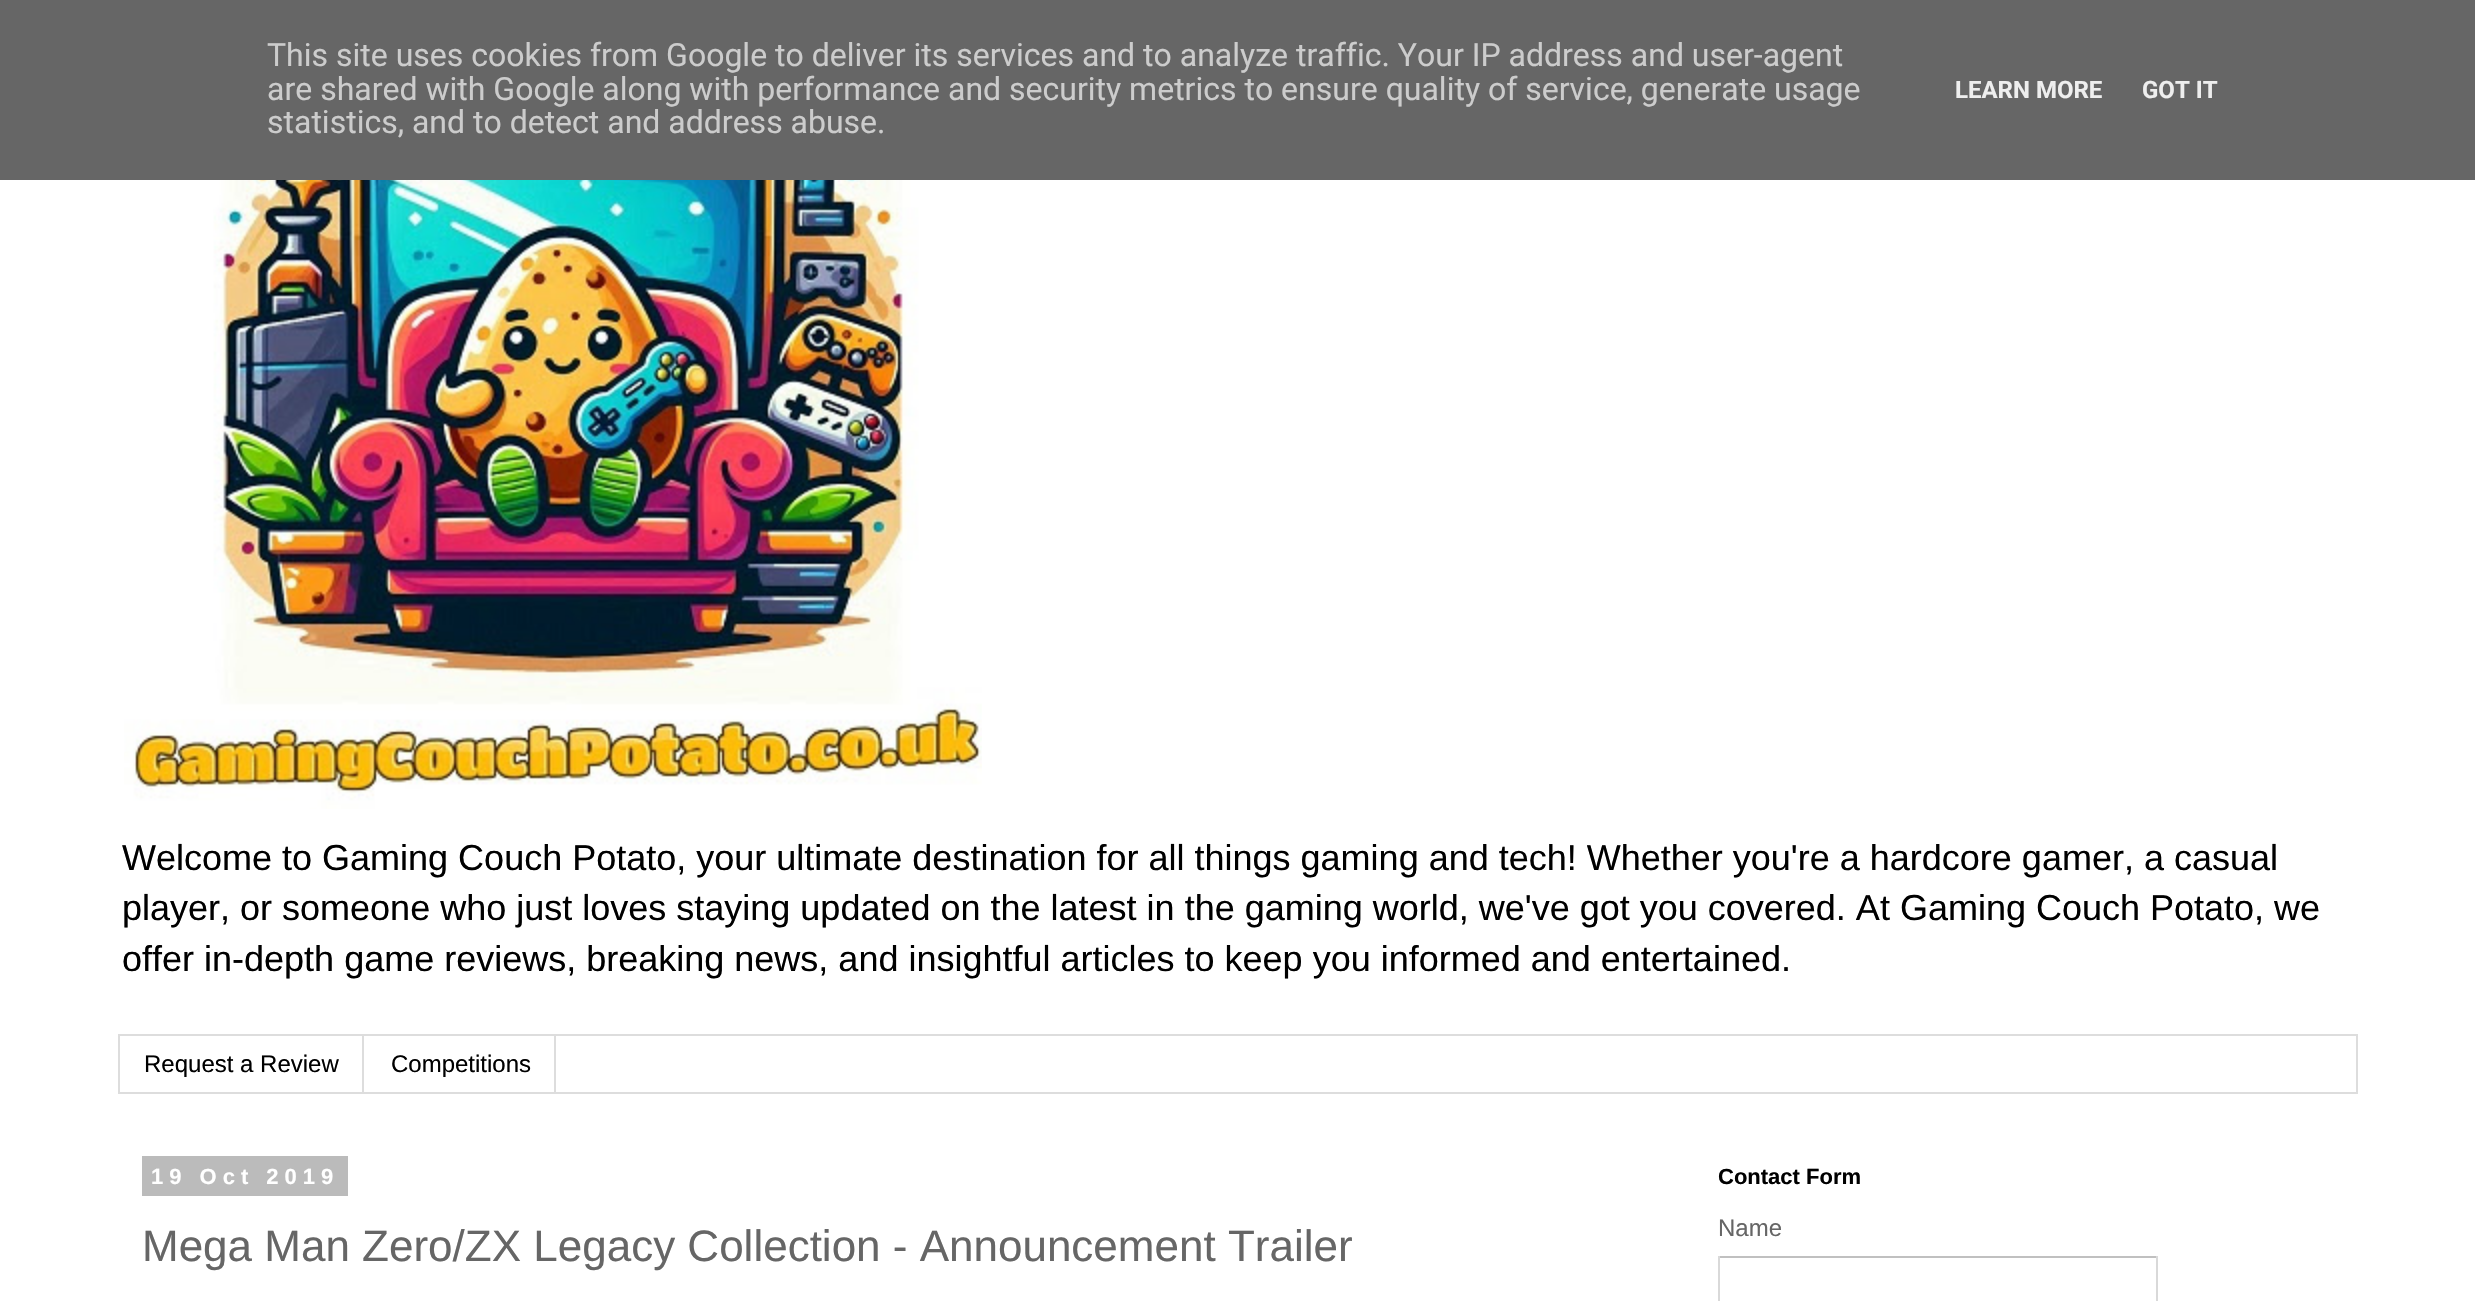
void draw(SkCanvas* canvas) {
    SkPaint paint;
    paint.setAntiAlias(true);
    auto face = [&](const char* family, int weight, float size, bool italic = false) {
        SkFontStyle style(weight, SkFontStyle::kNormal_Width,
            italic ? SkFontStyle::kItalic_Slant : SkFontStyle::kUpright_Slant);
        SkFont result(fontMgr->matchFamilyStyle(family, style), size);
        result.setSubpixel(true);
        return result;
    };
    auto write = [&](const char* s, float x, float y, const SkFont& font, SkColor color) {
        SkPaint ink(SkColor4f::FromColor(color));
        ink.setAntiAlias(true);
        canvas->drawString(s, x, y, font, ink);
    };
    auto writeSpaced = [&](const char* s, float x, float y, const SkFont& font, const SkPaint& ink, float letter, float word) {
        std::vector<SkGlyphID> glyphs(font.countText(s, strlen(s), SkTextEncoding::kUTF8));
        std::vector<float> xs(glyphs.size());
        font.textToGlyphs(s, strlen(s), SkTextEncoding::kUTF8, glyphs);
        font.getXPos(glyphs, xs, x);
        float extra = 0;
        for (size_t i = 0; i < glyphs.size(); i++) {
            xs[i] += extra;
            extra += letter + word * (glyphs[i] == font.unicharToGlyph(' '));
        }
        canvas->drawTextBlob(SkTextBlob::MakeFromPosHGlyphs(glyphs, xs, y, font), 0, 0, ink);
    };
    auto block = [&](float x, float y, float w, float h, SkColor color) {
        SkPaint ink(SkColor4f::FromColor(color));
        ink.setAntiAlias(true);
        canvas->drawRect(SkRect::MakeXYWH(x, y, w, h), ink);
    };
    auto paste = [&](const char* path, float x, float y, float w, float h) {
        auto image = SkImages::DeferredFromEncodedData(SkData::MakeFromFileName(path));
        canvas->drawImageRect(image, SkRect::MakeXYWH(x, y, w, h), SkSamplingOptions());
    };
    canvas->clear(SK_ColorWHITE);
    block(0, 0, 2475, 180, SkColorSetRGB(102, 102, 102));
    auto kFont1 = face("Roboto", 400, 32);
    write("This site uses cookies from Google to deliver its services and to analyze traffic. Your IP address and user-agent", 267, 66, kFont1, SkColorSetRGB(204, 204, 204));
    write("are shared with Google along with performance and security metrics to ensure quality of service, generate usage", 267, 100, kFont1, SkColorSetRGB(204, 204, 204));
    write("statistics, and to detect and address abuse.", 267, 133, kFont1, SkColorSetRGB(204, 204, 204));
    auto kFont2 = face("Roboto", 700, 24);
    write("LEARN MORE", 1955, 98, kFont2, SkColorSetRGB(238, 238, 238));
    write("GOT IT", 2142, 98, kFont2, SkColorSetRGB(238, 238, 238));
    paste("pic1.png", 124, 180, 858, 629);
    auto kFont3 = face("Liberation Sans", 400, 36);
    write("Welcome to Gaming Couch Potato, your ultimate destination for all things gaming and tech! Whether you're a hardcore gamer, a casual", 122, 870, kFont3, SK_ColorBLACK);
    write("player, or someone who just loves staying updated on the latest in the gaming world, we've got you covered. At Gaming Couch Potato, we", 122, 920, kFont3, SK_ColorBLACK);
    write("offer in-depth game reviews, breaking news, and insightful articles to keep you informed and entertained.", 122, 971, kFont3, SK_ColorBLACK);
    paint.setStyle(SkPaint::kStroke_Style);
    paint.setStrokeWidth(2);
    paint.setColor(SkColorSetRGB(221, 221, 221));
    canvas->drawRect(SkRect::MakeXYWH(119, 1035, 2238, 58), paint);
    block(362, 1036, 2, 56, SkColorSetRGB(221, 221, 221));
    auto kFont4 = face("Liberation Sans", 400, 24);
    write("Request a Review", 144, 1072, kFont4, SK_ColorBLACK);
    block(554, 1036, 2, 56, SkColorSetRGB(221, 221, 221));
    write("Competitions", 391, 1072, kFont4, SK_ColorBLACK);
    block(142, 1156, 206, 40, SkColorSetRGB(187, 187, 187));
    auto kFont5 = face("Liberation Sans", 700, 22);
    paint.setStyle(SkPaint::kFill_Style);
    paint.setColor(SK_ColorWHITE);
    writeSpaced("19 Oct 2019", 151, 1184, kFont5, paint, 6, 0);
    auto kFont6 = face("Liberation Sans", 400, 44);
    write("Mega Man Zero/ZX Legacy Collection - Announcement Trailer", 142, 1261, kFont6, SkColorSetRGB(102, 102, 102));
    write("Contact Form", 1718, 1184, kFont5, SK_ColorBLACK);
    write("Name", 1718, 1236, kFont4, SkColorSetRGB(102, 102, 102));
    block(1718, 1256, 440, 2, SkColorSetRGB(192, 192, 192));
    block(2156, 1256, 2, 45, SkColorSetRGB(217, 217, 217));
    block(1718, 1256, 2, 45, SkColorSetRGB(217, 217, 217));
}
